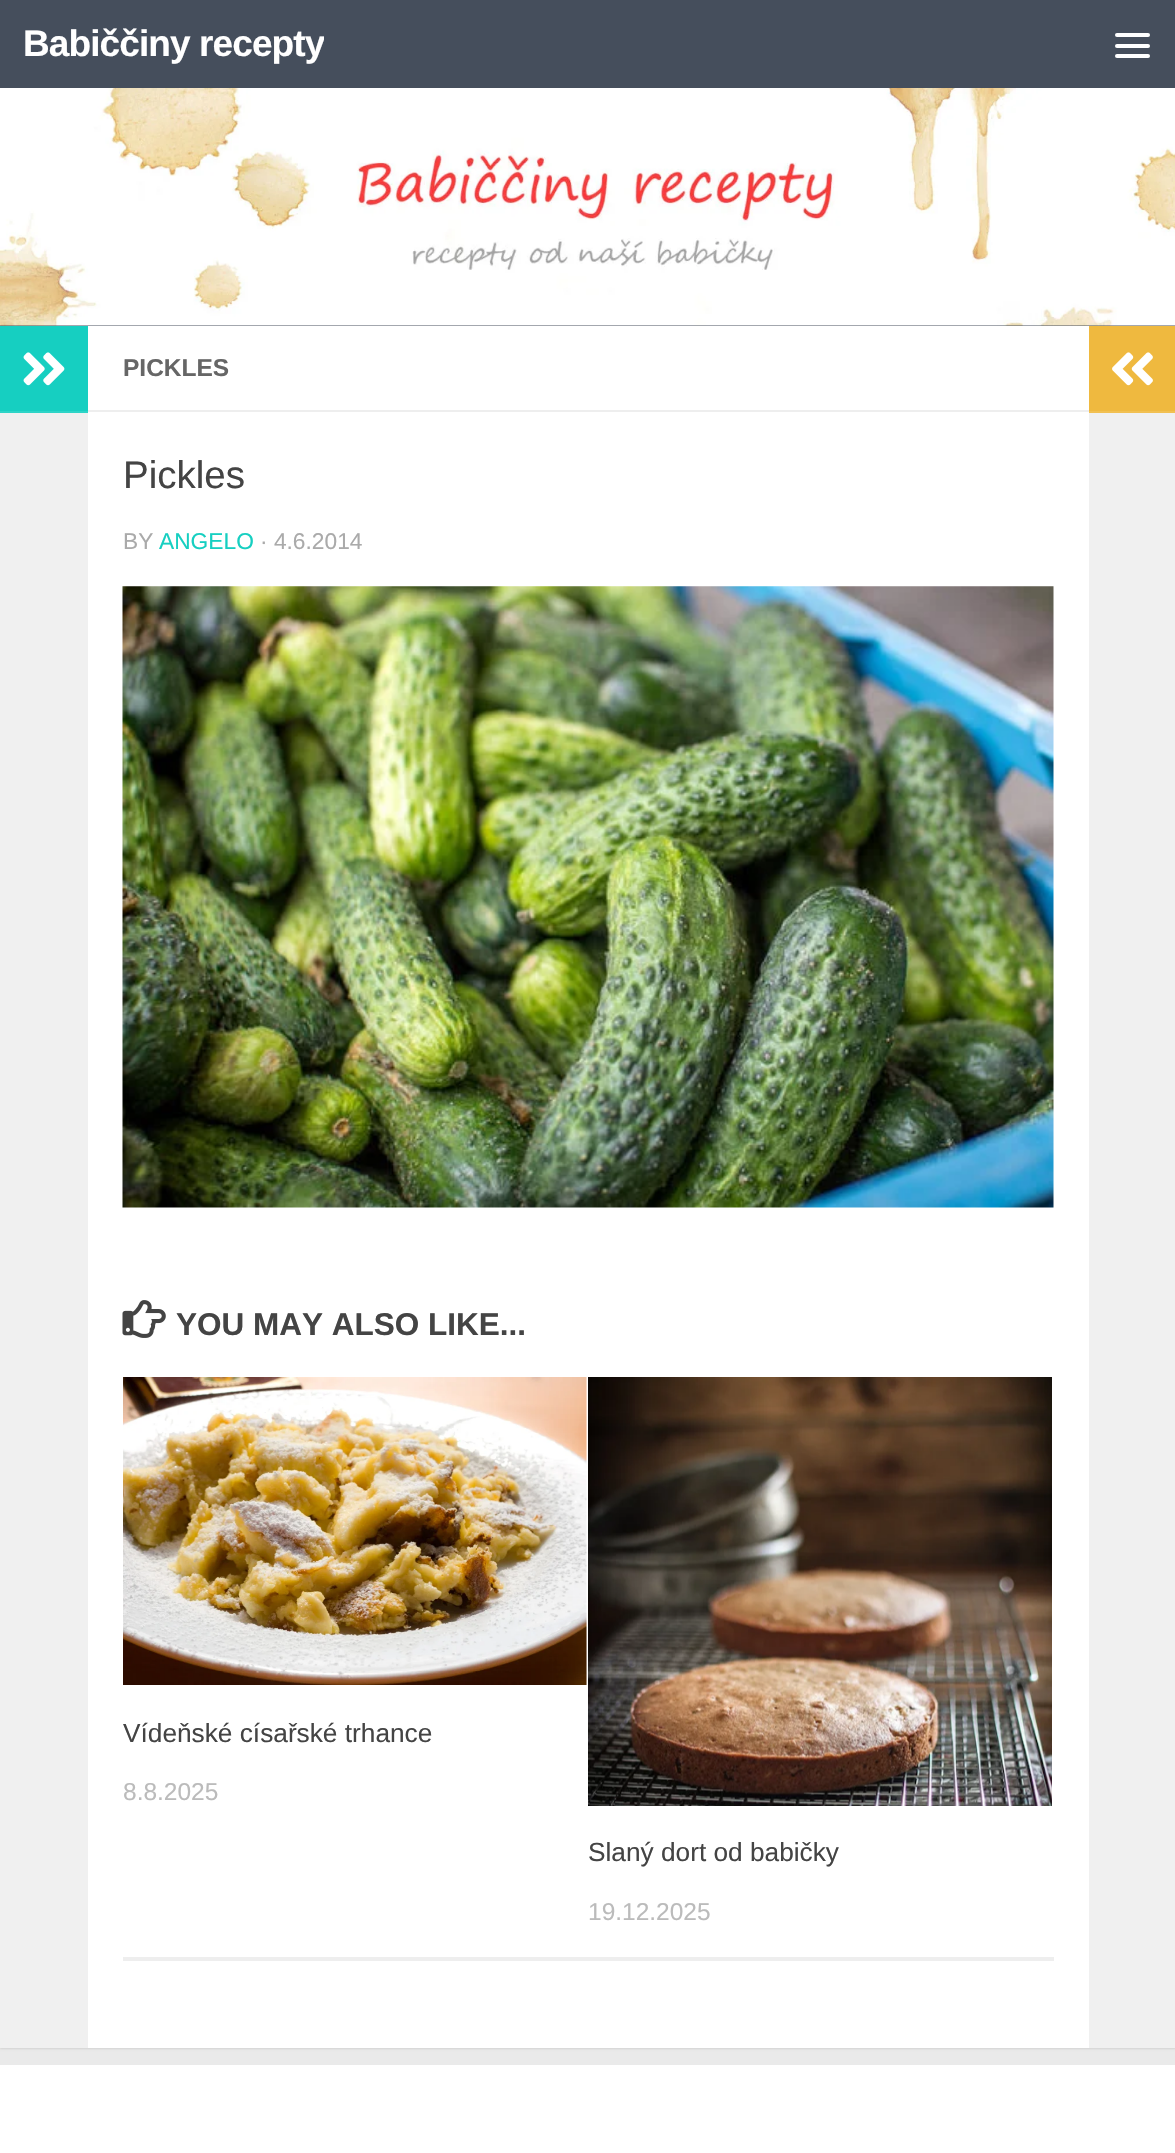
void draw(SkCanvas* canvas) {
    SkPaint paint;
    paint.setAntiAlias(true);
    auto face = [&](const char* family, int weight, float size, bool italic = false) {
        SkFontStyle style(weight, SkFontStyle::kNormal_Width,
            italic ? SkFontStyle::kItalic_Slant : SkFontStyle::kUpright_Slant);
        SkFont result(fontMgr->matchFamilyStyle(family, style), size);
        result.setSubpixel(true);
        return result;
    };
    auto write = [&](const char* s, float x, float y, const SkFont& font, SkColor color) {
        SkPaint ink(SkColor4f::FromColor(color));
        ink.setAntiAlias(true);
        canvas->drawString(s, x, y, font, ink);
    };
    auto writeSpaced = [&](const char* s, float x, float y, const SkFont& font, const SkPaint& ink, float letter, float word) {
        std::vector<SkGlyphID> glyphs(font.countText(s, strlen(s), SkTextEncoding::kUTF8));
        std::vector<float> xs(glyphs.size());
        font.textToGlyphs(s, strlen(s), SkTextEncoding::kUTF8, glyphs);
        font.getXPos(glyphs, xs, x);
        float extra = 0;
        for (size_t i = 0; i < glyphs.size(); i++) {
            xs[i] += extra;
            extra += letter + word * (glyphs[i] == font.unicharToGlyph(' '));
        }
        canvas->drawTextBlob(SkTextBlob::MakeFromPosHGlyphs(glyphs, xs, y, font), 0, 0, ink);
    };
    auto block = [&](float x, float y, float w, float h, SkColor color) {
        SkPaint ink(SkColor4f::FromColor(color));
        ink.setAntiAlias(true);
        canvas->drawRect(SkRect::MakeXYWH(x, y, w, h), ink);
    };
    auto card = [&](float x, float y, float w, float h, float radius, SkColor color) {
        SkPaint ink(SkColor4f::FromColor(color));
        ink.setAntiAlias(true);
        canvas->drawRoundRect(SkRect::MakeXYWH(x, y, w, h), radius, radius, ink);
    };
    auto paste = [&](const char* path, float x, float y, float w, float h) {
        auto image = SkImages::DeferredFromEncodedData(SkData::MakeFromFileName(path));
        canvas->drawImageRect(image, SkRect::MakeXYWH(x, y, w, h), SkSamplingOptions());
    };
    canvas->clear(SkColorSetRGB(234, 234, 234));
    paint.setColor(SkColorSetARGB(26, 0, 0, 0));
    paint.setMaskFilter(SkMaskFilter::MakeBlur(kNormal_SkBlurStyle, 1));
    canvas->drawRect(SkRect::MakeXYWH(0, 327, 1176, 1722), paint);
    paint.setMaskFilter(nullptr);
    block(0, 325, 1175, 1, SkColorSetRGB(69, 78, 92));
    block(0, 0, 1175, 88, SkColorSetRGB(69, 78, 92));
    canvas->save();
    canvas->clipRect(SkRect::MakeXYWH(23, 0, 301, 88));
    auto kFont1 = face("Liberation Sans", 700, 37);
    paint.setColor(SK_ColorWHITE);
    writeSpaced("Babiččiny recepty", 23, 56, kFont1, paint, -0.9f, 0);
    canvas->restore();
    card(1115, 33, 35, 4, 2, SK_ColorWHITE);
    card(1115, 44, 35, 4, 2, SK_ColorWHITE);
    card(1115, 54, 35, 4, 2, SK_ColorWHITE);
    paste("pic1.png", 0, 88, 1175, 238);
    block(88, 326, 1001, 1722, SK_ColorWHITE);
    block(0, 413, 88, 1635, SkColorSetRGB(240, 240, 240));
    block(0, 326, 88, 85, SkColorSetRGB(22, 207, 193));
    block(0, 411, 88, 2, SkColorSetRGB(45, 212, 199));
    paste("pic2.png", 23, 352, 42, 34);
    block(88, 410, 1001, 2, SkColorSetRGB(238, 238, 238));
    auto kFont2 = face("Liberation Sans", 700, 24.5f);
    write("PICKLES", 123, 376, kFont2, SkColorSetRGB(102, 102, 102));
    auto kFont3 = face("Liberation Sans", 400, 38.5f);
    write("Pickles", 123, 488, kFont3, SkColorSetRGB(68, 68, 68));
    auto kFont4 = face("Liberation Sans", 400, 22.75f);
    write("BY", 123, 549, kFont4, SkColorSetRGB(170, 170, 170));
    write("ANGELO", 159, 549, kFont4, SkColorSetRGB(22, 207, 193));
    write("· 4.6.2014", 260, 549, kFont4, SkColorSetRGB(170, 170, 170));
    paste("pic3.png", 122, 586, 932, 622);
    paste("pic4.png", 122, 1300, 44, 38);
    auto kFont5 = face("Liberation Sans", 700, 31.5f);
    write("YOU MAY ALSO LIKE...", 176, 1335, kFont5, SkColorSetRGB(68, 68, 68));
    block(123, 1957, 931, 4, SkColorSetRGB(238, 238, 238));
    paste("pic5.png", 123, 1377, 464, 308);
    auto kFont6 = face("Liberation Sans", 400, 26.25f);
    write("Vídeňské císařské trhance", 123, 1742, kFont6, SkColorSetRGB(68, 68, 68));
    auto kFont7 = face("Liberation Sans", 400, 24.5f);
    write("8.8.2025", 123, 1800, kFont7, SkColorSetRGB(187, 187, 187));
    paste("pic6.png", 588, 1377, 464, 429);
    write("Slaný dort od babičky", 588, 1861, kFont6, SkColorSetRGB(68, 68, 68));
    write("19.12.2025", 588, 1920, kFont7, SkColorSetRGB(187, 187, 187));
    block(1089, 326, 86, 85, SkColorSetRGB(239, 185, 63));
    block(1089, 411, 86, 2, SkColorSetRGB(241, 192, 82));
    paste("pic7.png", 1112, 352, 41, 34);
    block(1089, 413, 86, 1635, SkColorSetRGB(240, 240, 240));
    block(0, 2065, 1175, 88, SK_ColorWHITE);
}
